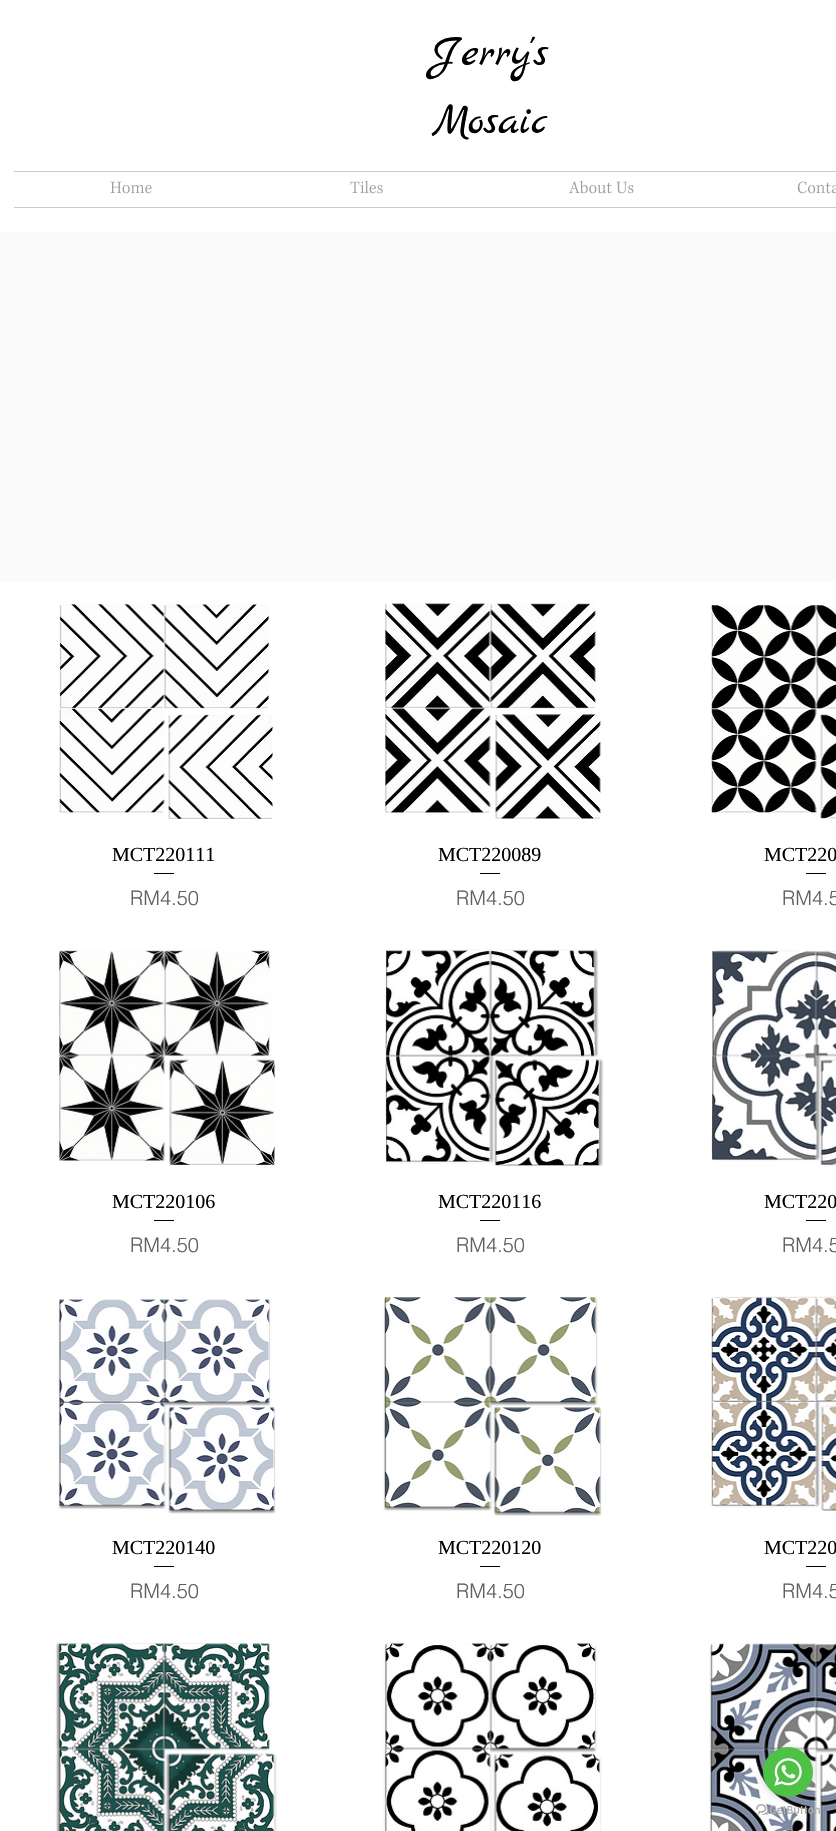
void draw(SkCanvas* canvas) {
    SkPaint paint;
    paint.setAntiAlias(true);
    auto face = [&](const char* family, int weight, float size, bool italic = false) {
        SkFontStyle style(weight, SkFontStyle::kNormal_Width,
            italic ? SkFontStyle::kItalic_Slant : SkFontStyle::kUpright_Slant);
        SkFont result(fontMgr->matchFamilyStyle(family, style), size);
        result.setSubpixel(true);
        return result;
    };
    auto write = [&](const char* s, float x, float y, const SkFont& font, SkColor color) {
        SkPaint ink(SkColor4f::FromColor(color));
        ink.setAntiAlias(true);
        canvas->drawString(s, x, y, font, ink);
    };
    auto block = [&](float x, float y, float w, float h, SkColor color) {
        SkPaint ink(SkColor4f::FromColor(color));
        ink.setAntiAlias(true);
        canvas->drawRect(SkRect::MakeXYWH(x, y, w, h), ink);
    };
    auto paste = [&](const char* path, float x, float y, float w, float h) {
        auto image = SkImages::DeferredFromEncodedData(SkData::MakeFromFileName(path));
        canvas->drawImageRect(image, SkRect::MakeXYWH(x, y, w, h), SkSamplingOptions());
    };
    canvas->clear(SK_ColorWHITE);
    auto kFont1 = face("Marck Script", 400, 45);
    write("Jerry's", 430, 65, kFont1, SK_ColorBLACK);
    write("Mosaic", 432, 133, kFont1, SK_ColorBLACK);
    block(14, 171, 822, 1, SkColorSetRGB(202, 202, 202));
    block(14, 207, 822, 1, SkColorSetRGB(202, 202, 202));
    paste("pic1.png", 110, 181, 42, 13);
    paste("pic2.png", 350, 181, 33, 13);
    paste("pic3.png", 568, 181, 66, 13);
    paste("pic4.png", 797, 181, 39, 13);
    block(0, 232, 836, 350, SkColorSetRGB(250, 250, 250));
    paste("pic5.png", 59, 604, 214, 215);
    auto kFont2 = face("Liberation Serif", 400, 20);
    write("MCT220111", 112, 861, kFont2, SK_ColorBLACK);
    block(154, 873, 20, 1, SK_ColorBLACK);
    auto kFont3 = face("helvetica", 300, 20);
    write("RM4.50", 130, 905, kFont3, SkColorSetRGB(96, 96, 96));
    paste("pic6.png", 385, 603, 216, 216);
    write("MCT220089", 438, 861, kFont2, SK_ColorBLACK);
    block(480, 873, 20, 1, SK_ColorBLACK);
    write("RM4.50", 456, 905, kFont3, SkColorSetRGB(96, 96, 96));
    paste("pic7.png", 711, 605, 125, 214);
    write("MCT220", 764, 861, kFont2, SK_ColorBLACK);
    block(806, 873, 20, 1, SK_ColorBLACK);
    write("RM4.5", 782, 905, kFont3, SkColorSetRGB(96, 96, 96));
    paste("pic8.png", 59, 950, 216, 215);
    write("MCT220106", 112, 1208, kFont2, SK_ColorBLACK);
    block(154, 1220, 20, 1, SK_ColorBLACK);
    write("RM4.50", 130, 1252, kFont3, SkColorSetRGB(96, 96, 96));
    paste("pic9.png", 385, 949, 219, 218);
    write("MCT220116", 438, 1208, kFont2, SK_ColorBLACK);
    block(480, 1220, 20, 1, SK_ColorBLACK);
    write("RM4.50", 456, 1252, kFont3, SkColorSetRGB(96, 96, 96));
    paste("pic10.png", 711, 950, 125, 217);
    write("MCT220", 764, 1208, kFont2, SK_ColorBLACK);
    block(806, 1220, 20, 1, SK_ColorBLACK);
    write("RM4.5", 782, 1252, kFont3, SkColorSetRGB(96, 96, 96));
    paste("pic11.png", 58, 1299, 218, 215);
    write("MCT220140", 112, 1554, kFont2, SK_ColorBLACK);
    block(154, 1566, 20, 1, SK_ColorBLACK);
    write("RM4.50", 130, 1598, kFont3, SkColorSetRGB(96, 96, 96));
    paste("pic12.png", 383, 1297, 219, 219);
    write("MCT220120", 438, 1554, kFont2, SK_ColorBLACK);
    block(480, 1566, 20, 1, SK_ColorBLACK);
    write("RM4.50", 456, 1598, kFont3, SkColorSetRGB(96, 96, 96));
    paste("pic13.png", 711, 1296, 125, 215);
    write("MCT220", 764, 1554, kFont2, SK_ColorBLACK);
    block(806, 1566, 20, 1, SK_ColorBLACK);
    write("RM4.5", 782, 1598, kFont3, SkColorSetRGB(96, 96, 96));
    paste("pic14.png", 55, 1642, 222, 189);
    paste("pic15.png", 383, 1643, 219, 188);
    paste("pic16.png", 709, 1643, 127, 188);
    paste("pic18.png", 756, 1804, 64, 11);
    paint.setColor(SkColorSetARGB(102, 136, 136, 136));
    paint.setMaskFilter(SkMaskFilter::MakeBlur(kNormal_SkBlurStyle, 3.5f));
    canvas->drawRoundRect(SkRect::MakeXYWH(763, 1748, 50, 50), 25, 25, paint);
    paint.setMaskFilter(nullptr);
    paint.setColor(SkColorSetRGB(77, 194, 71));
    canvas->drawCircle(788, 1772, 25, paint);
    paste("pic17.png", 774, 1758, 28, 28);
}
